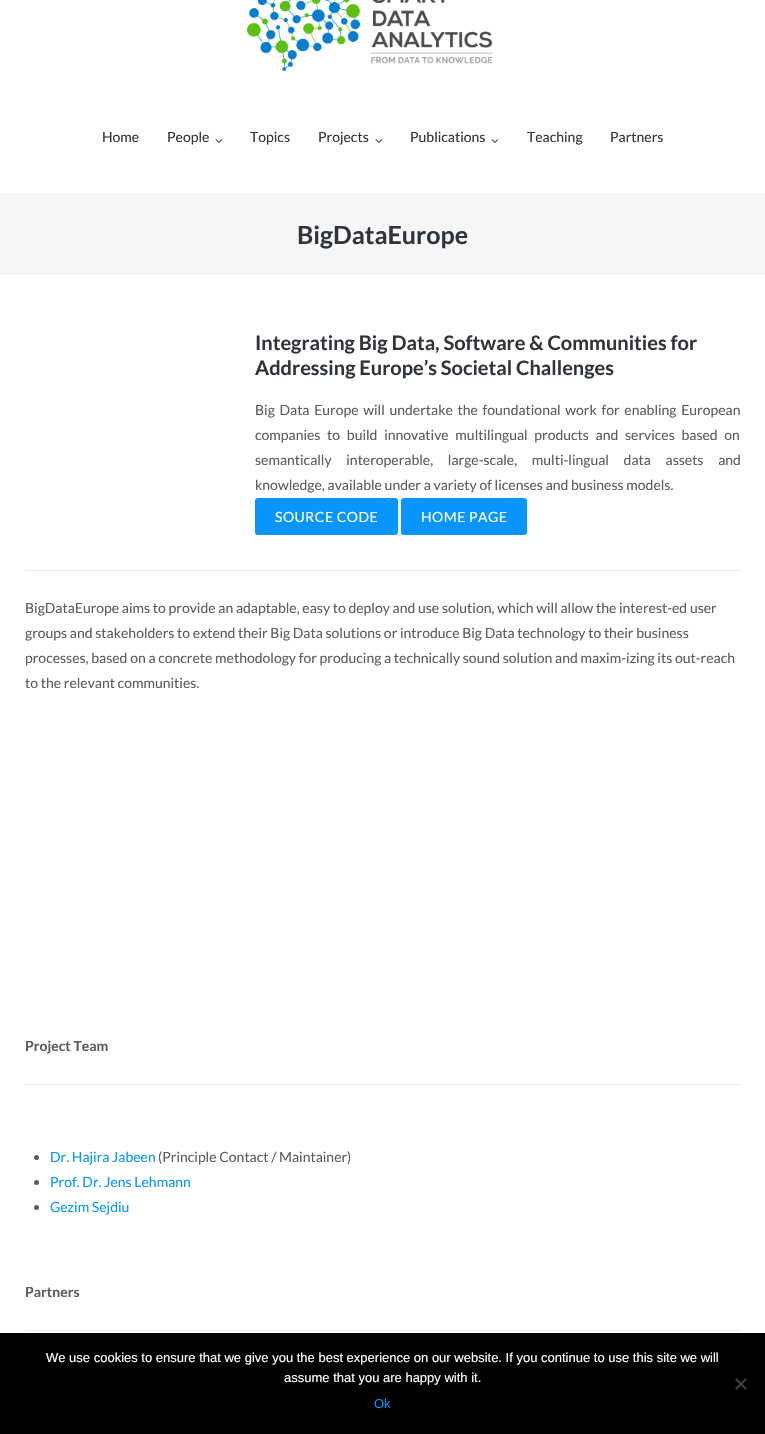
void draw(SkCanvas* canvas) {
    SkPaint paint;
    paint.setAntiAlias(true);
    auto face = [&](const char* family, int weight, float size, bool italic = false) {
        SkFontStyle style(weight, SkFontStyle::kNormal_Width,
            italic ? SkFontStyle::kItalic_Slant : SkFontStyle::kUpright_Slant);
        SkFont result(fontMgr->matchFamilyStyle(family, style), size);
        result.setSubpixel(true);
        return result;
    };
    auto write = [&](const char* s, float x, float y, const SkFont& font, SkColor color) {
        SkPaint ink(SkColor4f::FromColor(color));
        ink.setAntiAlias(true);
        canvas->drawString(s, x, y, font, ink);
    };
    auto writeSpaced = [&](const char* s, float x, float y, const SkFont& font, const SkPaint& ink, float letter, float word) {
        std::vector<SkGlyphID> glyphs(font.countText(s, strlen(s), SkTextEncoding::kUTF8));
        std::vector<float> xs(glyphs.size());
        font.textToGlyphs(s, strlen(s), SkTextEncoding::kUTF8, glyphs);
        font.getXPos(glyphs, xs, x);
        float extra = 0;
        for (size_t i = 0; i < glyphs.size(); i++) {
            xs[i] += extra;
            extra += letter + word * (glyphs[i] == font.unicharToGlyph(' '));
        }
        canvas->drawTextBlob(SkTextBlob::MakeFromPosHGlyphs(glyphs, xs, y, font), 0, 0, ink);
    };
    auto block = [&](float x, float y, float w, float h, SkColor color) {
        SkPaint ink(SkColor4f::FromColor(color));
        ink.setAntiAlias(true);
        canvas->drawRect(SkRect::MakeXYWH(x, y, w, h), ink);
    };
    auto card = [&](float x, float y, float w, float h, float radius, SkColor color) {
        SkPaint ink(SkColor4f::FromColor(color));
        ink.setAntiAlias(true);
        canvas->drawRoundRect(SkRect::MakeXYWH(x, y, w, h), radius, radius, ink);
    };
    auto paste = [&](const char* path, float x, float y, float w, float h) {
        auto image = SkImages::DeferredFromEncodedData(SkData::MakeFromFileName(path));
        canvas->drawImageRect(image, SkRect::MakeXYWH(x, y, w, h), SkSamplingOptions());
    };
    canvas->clear(SK_ColorWHITE);
    paste("pic1.png", 247, 0, 246, 71);
    auto kFont1 = face("Lato", 400, 14);
    write("Home", 102, 142, kFont1, SkColorSetRGB(49, 53, 57));
    write("People", 167, 142, kFont1, SkColorSetRGB(49, 53, 57));
    paste("pic2.png", 215, 139, 8, 4);
    write("Topics", 250, 142, kFont1, SkColorSetRGB(49, 53, 57));
    write("Projects", 318, 142, kFont1, SkColorSetRGB(49, 53, 57));
    paste("pic2.png", 375, 139, 8, 4);
    write("Publications", 410, 142, kFont1, SkColorSetRGB(49, 53, 57));
    paste("pic2.png", 491, 139, 8, 4);
    write("Teaching", 527, 142, kFont1, SkColorSetRGB(49, 53, 57));
    write("Partners", 610, 142, kFont1, SkColorSetRGB(49, 53, 57));
    block(0, 193, 765, 82, SkColorSetRGB(246, 246, 247));
    auto kFont2 = face("Lato", 700, 25);
    write("BigDataEurope", 297, 244, kFont2, SkColorSetRGB(49, 53, 57));
    auto kFont3 = face("Lato", 700, 20);
    write("Integrating Big Data, Software & Communities for", 255, 350, kFont3, SkColorSetRGB(49, 53, 57));
    write("Addressing Europe’s Societal Challenges", 255, 375, kFont3, SkColorSetRGB(49, 53, 57));
    paint.setColor(SkColorSetRGB(90, 93, 96));
    writeSpaced("Big Data Europe will undertake the foundational work for enabling European", 255, 415, kFont1, paint, 0, 2);
    writeSpaced("companies to build innovative multilingual products and services based on", 255, 440, kFont1, paint, 0, 4);
    writeSpaced("semantically interoperable, large-scale, multi-lingual data assets and", 255, 465, kFont1, paint, 0, 12);
    write("knowledge, available under a variety of licenses and business models.", 255, 490, kFont1, SkColorSetRGB(90, 93, 96));
    card(255, 498, 143, 37, 3, SkColorSetRGB(8, 150, 254));
    paint.setColor(SK_ColorWHITE);
    writeSpaced("SOURCE CODE", 275, 522, kFont1, paint, 0.5f, 0);
    card(401, 498, 126, 37, 3, SkColorSetRGB(8, 150, 254));
    writeSpaced("HOME PAGE", 421, 522, kFont1, paint, 0.5f, 0);
    block(25, 570, 715, 1, SkColorSetRGB(234, 234, 235));
    write("BigDataEurope aims to provide an adaptable, easy to deploy and use solution, which will allow the interest-ed user", 25, 613, kFont1, SkColorSetRGB(90, 93, 96));
    write("groups and stakeholders to extend their Big Data solutions or introduce Big Data technology to their business", 25, 638, kFont1, SkColorSetRGB(90, 93, 96));
    write("processes, based on a concrete methodology for producing a technically sound solution and maxim-izing its out-reach", 25, 663, kFont1, SkColorSetRGB(90, 93, 96));
    write("to the relevant communities.", 25, 688, kFont1, SkColorSetRGB(90, 93, 96));
    auto kFont4 = face("Lato", 700, 14);
    write("Project Team", 25, 1051, kFont4, SkColorSetRGB(90, 93, 96));
    block(25, 1084, 715, 1, SkColorSetRGB(234, 234, 235));
    paint.setColor(SkColorSetRGB(90, 93, 96));
    canvas->drawCircle(36.5f, 1157.5f, 2.5f, paint);
    write("Dr. Hajira Jabeen", 50, 1162, kFont1, SkColorSetRGB(8, 150, 254));
    write("(Principle Contact / Maintainer)", 158, 1162, kFont1, SkColorSetRGB(90, 93, 96));
    canvas->drawCircle(36.5f, 1182.5f, 2.5f, paint);
    write("Prof. Dr. Jens Lehmann", 50, 1187, kFont1, SkColorSetRGB(8, 150, 254));
    canvas->drawCircle(36.5f, 1207.5f, 2.5f, paint);
    write("Gezim Sejdiu", 50, 1212, kFont1, SkColorSetRGB(8, 150, 254));
    write("Partners", 25, 1297, kFont4, SkColorSetRGB(90, 93, 96));
    block(25, 1330, 715, 1, SkColorSetRGB(234, 234, 235));
    block(0, 1333, 765, 101, SK_ColorBLACK);
    auto kFont5 = face("Liberation Sans", 400, 13);
    write("We use cookies to ensure that we give you the best experience on our website. If you continue to use this site we will", 46, 1362, kFont5, SK_ColorWHITE);
    write("assume that you are happy with it.", 284, 1382, kFont5, SK_ColorWHITE);
    paint.setColor(SkColorSetRGB(64, 64, 64));
    canvas->drawPath(SkPathBuilder().moveTo(745.5f, 1378).lineTo(747, 1379.5f).lineTo(736.5f, 1390).lineTo(735, 1388.5f).close().detach(), paint);
    canvas->drawPath(SkPathBuilder().moveTo(735, 1379.5f).lineTo(736.5f, 1378).lineTo(747, 1388.5f).lineTo(745.5f, 1390).close().detach(), paint);
    write("Ok", 374, 1408, kFont5, SkColorSetRGB(8, 150, 254));
}
